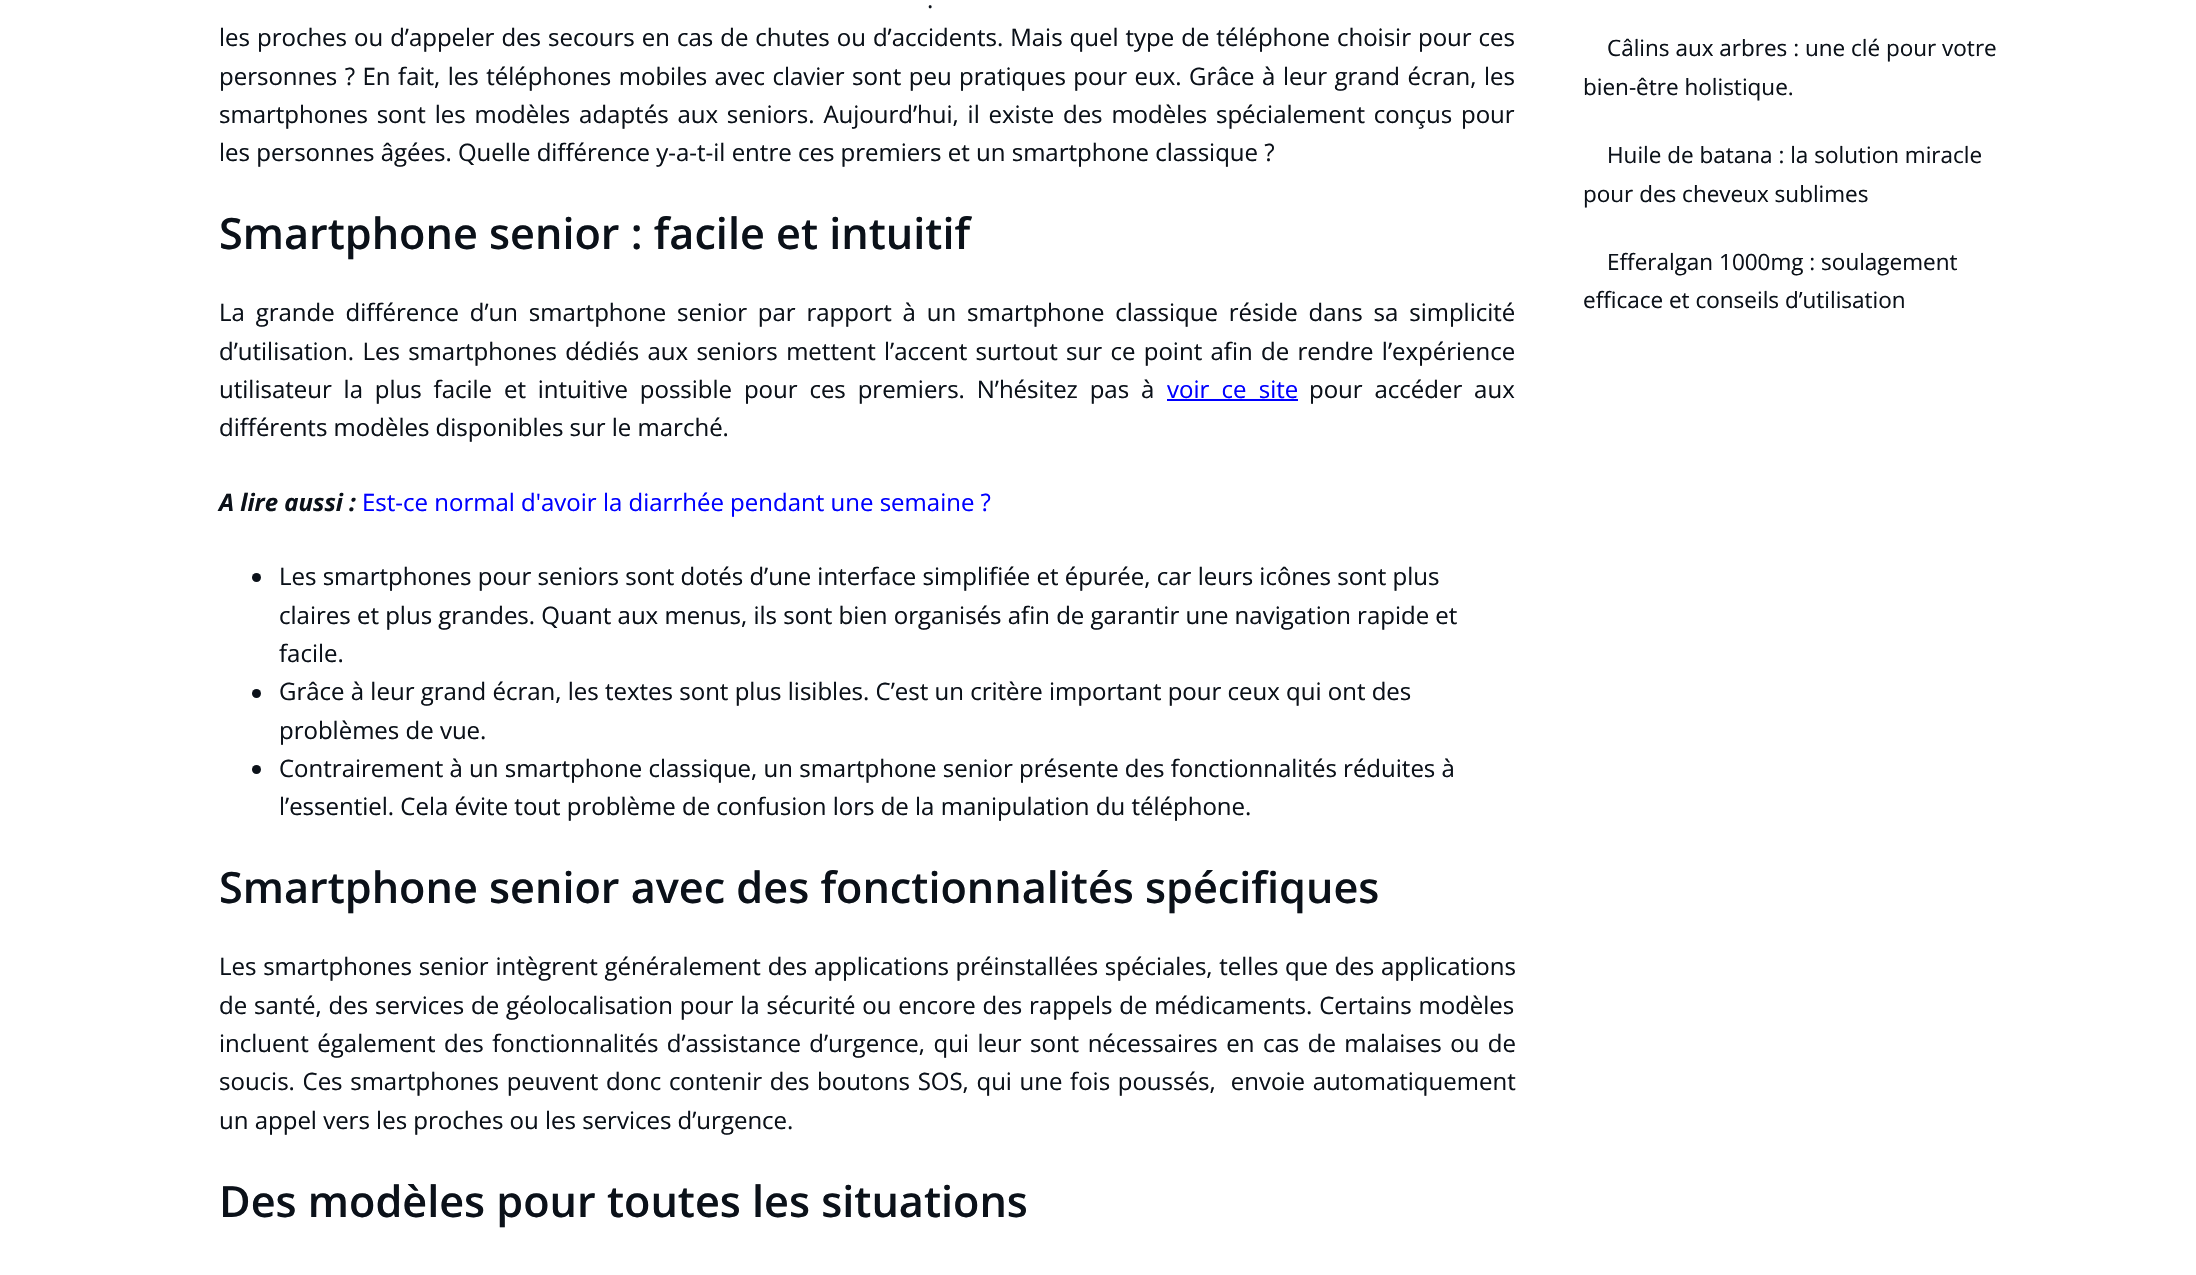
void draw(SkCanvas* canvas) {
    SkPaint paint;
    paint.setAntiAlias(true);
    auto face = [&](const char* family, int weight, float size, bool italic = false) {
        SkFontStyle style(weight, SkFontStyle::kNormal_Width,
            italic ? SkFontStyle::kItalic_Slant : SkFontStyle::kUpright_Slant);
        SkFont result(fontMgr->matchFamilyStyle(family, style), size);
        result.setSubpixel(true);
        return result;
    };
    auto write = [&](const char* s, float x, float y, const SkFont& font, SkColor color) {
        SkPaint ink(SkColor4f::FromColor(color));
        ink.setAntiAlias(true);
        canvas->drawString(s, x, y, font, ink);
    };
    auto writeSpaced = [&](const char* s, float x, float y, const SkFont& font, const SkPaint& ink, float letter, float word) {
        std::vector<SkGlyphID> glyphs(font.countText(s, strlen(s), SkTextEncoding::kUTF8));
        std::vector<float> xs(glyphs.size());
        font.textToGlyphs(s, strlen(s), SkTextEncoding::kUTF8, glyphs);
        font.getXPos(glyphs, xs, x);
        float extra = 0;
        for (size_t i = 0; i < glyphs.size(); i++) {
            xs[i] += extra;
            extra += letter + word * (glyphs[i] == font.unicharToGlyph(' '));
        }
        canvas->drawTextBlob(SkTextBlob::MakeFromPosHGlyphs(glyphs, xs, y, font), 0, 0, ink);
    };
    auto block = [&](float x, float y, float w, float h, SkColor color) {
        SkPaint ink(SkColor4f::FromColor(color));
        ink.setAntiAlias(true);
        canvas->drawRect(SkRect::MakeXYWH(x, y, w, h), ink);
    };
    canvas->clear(SK_ColorWHITE);
    auto kFont1 = face("Open Sans", 400, 24);
    paint.setColor(SkColorSetRGB(11, 17, 25));
    writeSpaced(".", 927, 8, kFont1, paint, 0, 3);
    writeSpaced("les proches ou d’appeler des secours en cas de chutes ou d’accidents. Mais quel type de téléphone choisir pour ces", 219, 46, kFont1, paint, 0, 0.75f);
    writeSpaced("personnes ? En fait, les téléphones mobiles avec clavier sont peu pratiques pour eux. Grâce à leur grand écran, les", 219, 85, kFont1, paint, 0, 1.25f);
    writeSpaced("smartphones sont les modèles adaptés aux seniors. Aujourd’hui, il existe des modèles spécialement conçus pour", 219, 123, kFont1, paint, 0, 2.6f);
    write("les personnes âgées. Quelle différence y-a-t-il entre ces premiers et un smartphone classique ?", 219, 161, kFont1, SkColorSetRGB(11, 17, 25));
    auto kFont2 = face("Open Sans", 600, 43.2f);
    write("Smartphone senior : facile et intuitif", 219, 249, kFont2, SkColorSetRGB(11, 17, 25));
    writeSpaced("La grande différence d’un smartphone senior par rapport à un smartphone classique réside dans sa simplicité", 219, 321, kFont1, paint, 0, 4.6f);
    writeSpaced("d’utilisation. Les smartphones dédiés aux seniors mettent l’accent surtout sur ce point afin de rendre l’expérience", 219, 360, kFont1, paint, 0, 2.1f);
    writeSpaced("utilisateur la plus facile et intuitive possible pour ces premiers. N’hésitez pas à", 219, 398, kFont1, paint, 0, 5.6f);
    paint.setColor(SkColorSetRGB(0, 0, 255));
    writeSpaced("voir ce site", 1167, 398, kFont1, paint, 0, 6);
    block(1167, 399, 131, 2, SkColorSetRGB(0, 0, 255));
    paint.setColor(SkColorSetRGB(11, 17, 25));
    writeSpaced("pour accéder aux", 1309, 398, kFont1, paint, 0, 5.6f);
    write("différents modèles disponibles sur le marché.", 219, 436, kFont1, SkColorSetRGB(11, 17, 25));
    auto kFont3 = face("Open Sans", 700, 24, true);
    write("A lire aussi :", 219, 511, kFont3, SkColorSetRGB(11, 17, 25));
    write("Est-ce normal d'avoir la diarrhée pendant une semaine ?", 362, 511, kFont1, SkColorSetRGB(0, 0, 255));
    canvas->drawCircle(256.5f, 577.5f, 4.5f, paint);
    write("Les smartphones pour seniors sont dotés d’une interface simplifiée et épurée, car leurs icônes sont plus", 279, 585, kFont1, SkColorSetRGB(11, 17, 25));
    write("claires et plus grandes. Quant aux menus, ils sont bien organisés afin de garantir une navigation rapide et", 279, 624, kFont1, SkColorSetRGB(11, 17, 25));
    write("facile.", 279, 662, kFont1, SkColorSetRGB(11, 17, 25));
    canvas->drawCircle(256.5f, 693.5f, 4.5f, paint);
    write("Grâce à leur grand écran, les textes sont plus lisibles. C’est un critère important pour ceux qui ont des", 279, 700, kFont1, SkColorSetRGB(11, 17, 25));
    write("problèmes de vue.", 279, 739, kFont1, SkColorSetRGB(11, 17, 25));
    canvas->drawCircle(256.5f, 769.5f, 4.5f, paint);
    write("Contrairement à un smartphone classique, un smartphone senior présente des fonctionnalités réduites à", 279, 777, kFont1, SkColorSetRGB(11, 17, 25));
    write("l’essentiel. Cela évite tout problème de confusion lors de la manipulation du téléphone.", 279, 815, kFont1, SkColorSetRGB(11, 17, 25));
    write("Smartphone senior avec des fonctionnalités spécifiques", 219, 903, kFont2, SkColorSetRGB(11, 17, 25));
    writeSpaced("Les smartphones senior intègrent généralement des applications préinstallées spéciales, telles que des applications", 219, 975, kFont1, paint, 0, 0.5f);
    writeSpaced("de santé, des services de géolocalisation pour la sécurité ou encore des rappels de médicaments. Certains modèles", 219, 1014, kFont1, paint, 0, 0.6f);
    writeSpaced("incluent également des fonctionnalités d’assistance d’urgence, qui leur sont nécessaires en cas de malaises ou de", 219, 1052, kFont1, paint, 0, 2.25f);
    writeSpaced("soucis. Ces smartphones peuvent donc contenir des boutons SOS, qui une fois poussés,  envoie automatiquement", 219, 1090, kFont1, paint, 0, 1.4f);
    write("un appel vers les proches ou les services d’urgence.", 219, 1129, kFont1, SkColorSetRGB(11, 17, 25));
    write("Des modèles pour toutes les situations", 219, 1217, kFont2, SkColorSetRGB(11, 17, 25));
    auto kFont4 = face("Open Sans", 400, 22.5f);
    write("Câlins aux arbres : une clé pour votre", 1607, 56, kFont4, SkColorSetRGB(11, 17, 25));
    write("bien-être holistique.", 1583, 95, kFont4, SkColorSetRGB(11, 17, 25));
    write("Huile de batana : la solution miracle", 1607, 163, kFont4, SkColorSetRGB(11, 17, 25));
    write("pour des cheveux sublimes", 1583, 202, kFont4, SkColorSetRGB(11, 17, 25));
    write("Efferalgan 1000mg : soulagement", 1607, 270, kFont4, SkColorSetRGB(11, 17, 25));
    write("efficace et conseils d’utilisation", 1583, 308, kFont4, SkColorSetRGB(11, 17, 25));
}
